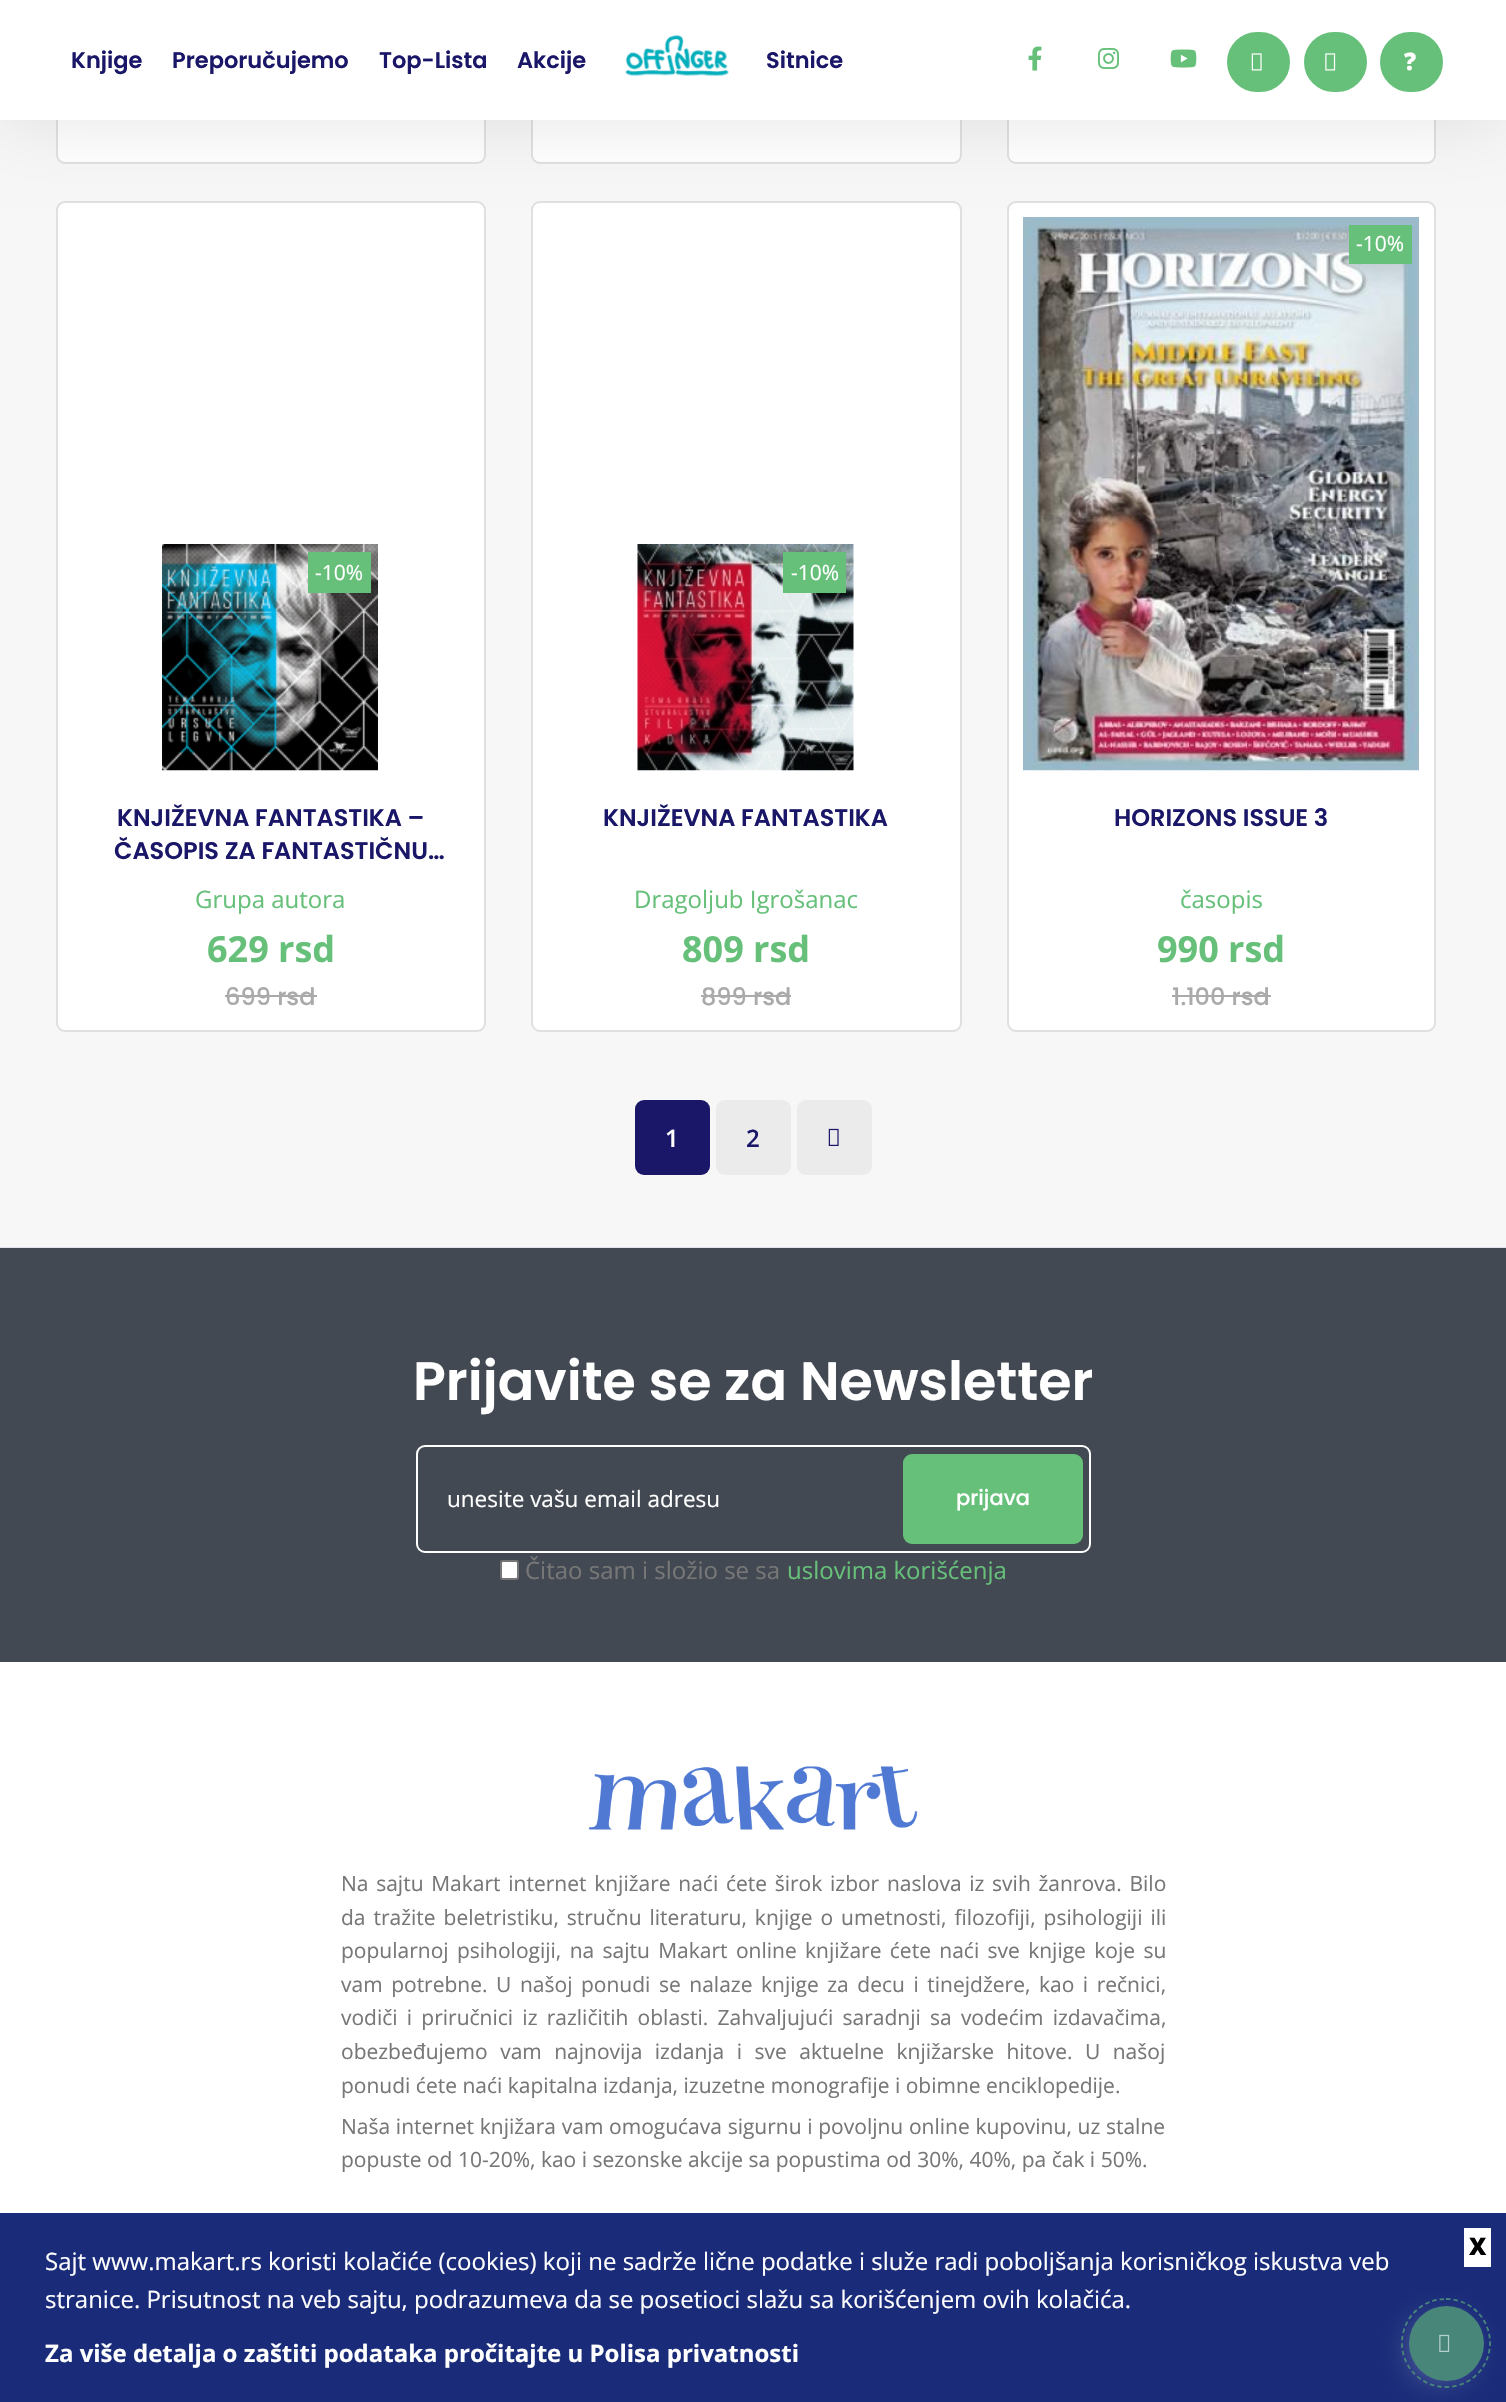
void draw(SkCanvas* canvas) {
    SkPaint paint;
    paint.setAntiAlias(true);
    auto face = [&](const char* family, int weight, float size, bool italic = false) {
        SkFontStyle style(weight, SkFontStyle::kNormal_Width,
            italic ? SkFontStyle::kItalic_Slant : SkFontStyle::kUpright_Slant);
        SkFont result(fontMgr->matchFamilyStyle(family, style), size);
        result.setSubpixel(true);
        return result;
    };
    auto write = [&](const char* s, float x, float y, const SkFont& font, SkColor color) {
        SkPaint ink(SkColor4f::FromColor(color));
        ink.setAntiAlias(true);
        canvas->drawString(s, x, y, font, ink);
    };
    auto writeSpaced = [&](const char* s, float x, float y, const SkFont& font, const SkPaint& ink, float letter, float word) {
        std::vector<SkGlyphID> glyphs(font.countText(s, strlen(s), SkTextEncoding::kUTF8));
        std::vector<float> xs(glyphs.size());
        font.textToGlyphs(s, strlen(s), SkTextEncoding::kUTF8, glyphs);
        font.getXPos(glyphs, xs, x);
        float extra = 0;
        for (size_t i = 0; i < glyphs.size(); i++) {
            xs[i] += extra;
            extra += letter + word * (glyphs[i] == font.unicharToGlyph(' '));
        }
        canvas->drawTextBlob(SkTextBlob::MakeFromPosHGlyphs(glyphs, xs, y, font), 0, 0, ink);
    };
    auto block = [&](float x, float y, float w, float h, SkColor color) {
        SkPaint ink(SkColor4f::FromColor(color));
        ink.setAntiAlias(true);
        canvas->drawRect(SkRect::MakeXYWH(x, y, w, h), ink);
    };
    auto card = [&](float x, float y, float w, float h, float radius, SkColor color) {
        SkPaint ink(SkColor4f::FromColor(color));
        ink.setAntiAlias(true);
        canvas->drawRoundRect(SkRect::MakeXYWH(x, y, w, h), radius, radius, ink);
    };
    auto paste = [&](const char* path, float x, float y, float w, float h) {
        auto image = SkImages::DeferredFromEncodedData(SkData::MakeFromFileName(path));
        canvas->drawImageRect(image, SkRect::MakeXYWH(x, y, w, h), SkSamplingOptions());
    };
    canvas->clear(SK_ColorWHITE);
    block(0, 120, 1506, 1127, SkColorSetRGB(247, 247, 247));
    card(56, -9, 430, 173, 9, SK_ColorWHITE);
    paint.setStyle(SkPaint::kStroke_Style);
    paint.setStrokeWidth(2);
    paint.setColor(SkColorSetARGB(31, 0, 0, 0));
    canvas->drawRoundRect(SkRect::MakeXYWH(57, -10, 428, 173), 8, 8, paint);
    card(531, -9, 431, 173, 9, SK_ColorWHITE);
    canvas->drawRoundRect(SkRect::MakeXYWH(532, -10, 429, 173), 8, 8, paint);
    card(1007, -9, 429, 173, 9, SK_ColorWHITE);
    canvas->drawRoundRect(SkRect::MakeXYWH(1008, -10, 427, 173), 8, 8, paint);
    card(56, 201, 430, 831, 9, SK_ColorWHITE);
    canvas->drawRoundRect(SkRect::MakeXYWH(57, 202, 428, 829), 8, 8, paint);
    card(531, 201, 431, 831, 9, SK_ColorWHITE);
    canvas->drawRoundRect(SkRect::MakeXYWH(532, 202, 429, 829), 8, 8, paint);
    card(1007, 201, 429, 831, 9, SK_ColorWHITE);
    canvas->drawRoundRect(SkRect::MakeXYWH(1008, 202, 427, 829), 8, 8, paint);
    paste("pic9.png", 1023, 217, 396, 554);
    block(1349, 225, 63, 39, SkColorSetRGB(102, 192, 122));
    paint.setStyle(SkPaint::kFill_Style);
    paint.setColor(SkColorSetARGB(26, 0, 0, 0));
    paint.setMaskFilter(SkMaskFilter::MakeBlur(kNormal_SkBlurStyle, 37.5f));
    canvas->drawRect(SkRect::MakeXYWH(0, 0, 1506, 120), paint);
    paint.setMaskFilter(nullptr);
    block(0, 0, 1506, 120, SK_ColorWHITE);
    auto kFont1 = face("Poppins", 600, 22.5f);
    write("Knjige", 71, 68, kFont1, SkColorSetRGB(26, 22, 104));
    write("Preporučujemo", 172, 68, kFont1, SkColorSetRGB(26, 22, 104));
    write("Top-Lista", 379, 68, kFont1, SkColorSetRGB(26, 22, 104));
    write("Akcije", 517, 68, kFont1, SkColorSetRGB(26, 22, 104));
    paste("pic1.png", 625, 35, 104, 42);
    write("Sitnice", 766, 68, kFont1, SkColorSetRGB(26, 22, 104));
    paste("pic2.png", 1028, 46, 14, 25);
    paste("pic3.png", 1098, 48, 21, 21);
    paste("pic4.png", 1170, 49, 27, 19);
    paint.setColor(SkColorSetRGB(102, 192, 122));
    canvas->drawRoundRect(SkRect::MakeXYWH(1228, 33, 61, 58), 29, 29, paint);
    paint.setStyle(SkPaint::kStroke_Style);
    canvas->drawRoundRect(SkRect::MakeXYWH(1228, 33, 61, 58), 29, 29, paint);
    paste("pic5.png", 1251, 53, 11, 18);
    paint.setStyle(SkPaint::kFill_Style);
    canvas->drawRoundRect(SkRect::MakeXYWH(1305, 33, 61, 58), 29, 29, paint);
    paint.setStyle(SkPaint::kStroke_Style);
    canvas->drawRoundRect(SkRect::MakeXYWH(1305, 33, 61, 58), 29, 29, paint);
    paste("pic6.png", 1325, 53, 11, 18);
    paint.setStyle(SkPaint::kFill_Style);
    canvas->drawRoundRect(SkRect::MakeXYWH(1381, 33, 61, 58), 29, 29, paint);
    paint.setStyle(SkPaint::kStroke_Style);
    canvas->drawRoundRect(SkRect::MakeXYWH(1381, 33, 61, 58), 29, 29, paint);
    auto kFont2 = face("Noto Sans", 900, 24);
    write("?", 1404, 70, kFont2, SK_ColorWHITE);
    block(0, 1247, 1506, 1, SkColorSetRGB(225, 225, 240));
    paste("pic7.png", 162, 544, 216, 227);
    block(308, 552, 63, 41, SkColorSetRGB(102, 192, 122));
    auto kFont3 = face("Open Sans", 400, 21);
    write("-10%", 315, 580, kFont3, SK_ColorWHITE);
    auto kFont4 = face("Poppins", 600, 24);
    write("KNJIŽEVNA FANTASTIKA –", 117, 826, kFont4, SkColorSetRGB(26, 22, 104));
    write("ČASOPIS ZA FANTASTIČNU…", 114, 859, kFont4, SkColorSetRGB(26, 22, 104));
    auto kFont5 = face("Open Sans", 400, 24);
    write("Grupa autora", 195, 908, kFont5, SkColorSetRGB(102, 192, 122));
    auto kFont6 = face("Open Sans", 700, 36);
    write("629 rsd", 207, 962, kFont6, SkColorSetRGB(102, 192, 122));
    auto kFont7 = face("Poppins", 500, 24);
    write("699 rsd", 225, 1005, kFont7, SkColorSetRGB(170, 170, 170));
    block(225, 995, 92, 2, SkColorSetRGB(170, 170, 170));
    paste("pic8.png", 637, 544, 217, 227);
    block(783, 552, 63, 41, SkColorSetRGB(102, 192, 122));
    write("-10%", 791, 580, kFont3, SK_ColorWHITE);
    write("KNJIŽEVNA FANTASTIKA", 603, 826, kFont4, SkColorSetRGB(26, 22, 104));
    write("Dragoljub Igrošanac", 634, 908, kFont5, SkColorSetRGB(102, 192, 122));
    write("809 rsd", 682, 962, kFont6, SkColorSetRGB(102, 192, 122));
    write("899 rsd", 701, 1005, kFont7, SkColorSetRGB(170, 170, 170));
    block(701, 995, 90, 2, SkColorSetRGB(170, 170, 170));
    write("-10%", 1356, 251, kFont3, SK_ColorWHITE);
    write("HORIZONS ISSUE 3", 1114, 826, kFont4, SkColorSetRGB(26, 22, 104));
    write("časopis", 1180, 908, kFont5, SkColorSetRGB(102, 192, 122));
    write("990 rsd", 1157, 962, kFont6, SkColorSetRGB(102, 192, 122));
    write("1.100 rsd", 1172, 1005, kFont7, SkColorSetRGB(170, 170, 170));
    block(1172, 995, 99, 2, SkColorSetRGB(170, 170, 170));
    card(635, 1100, 75, 75, 9, SkColorSetRGB(26, 22, 104));
    auto kFont8 = face("Open Sans", 600, 24);
    write("1", 665, 1147, kFont8, SK_ColorWHITE);
    card(716, 1100, 75, 75, 9, SkColorSetRGB(235, 235, 235));
    write("2", 746, 1147, kFont8, SkColorSetRGB(26, 22, 104));
    card(797, 1100, 75, 75, 9, SkColorSetRGB(235, 235, 235));
    paste("pic10.png", 828, 1128, 11, 18);
    block(0, 1248, 1506, 414, SkColorSetRGB(67, 73, 82));
    auto kFont9 = face("Poppins", 600, 54);
    write("Prijavite se za Newsletter", 413, 1400, kFont9, SK_ColorWHITE);
    paint.setColor(SK_ColorWHITE);
    canvas->drawRoundRect(SkRect::MakeXYWH(417, 1446, 673, 106), 8, 8, paint);
    auto kFont10 = face("Open Sans", 400, 22.5f);
    write("unesite vašu email adresu", 447, 1507, kFont10, SK_ColorWHITE);
    paint.setStyle(SkPaint::kFill_Style);
    paint.setColor(SkColorSetRGB(102, 192, 122));
    canvas->drawRoundRect(SkRect::MakeXYWH(904, 1455, 178, 88), 8, 8, paint);
    paint.setStyle(SkPaint::kStroke_Style);
    canvas->drawRoundRect(SkRect::MakeXYWH(904, 1455, 178, 88), 8, 8, paint);
    auto kFont11 = face("Poppins", 500, 21);
    write("prijava", 956, 1505, kFont11, SK_ColorWHITE);
    paint.setStyle(SkPaint::kFill_Style);
    paint.setColor(SK_ColorWHITE);
    canvas->drawRoundRect(SkRect::MakeXYWH(501, 1561, 17, 18), 2, 2, paint);
    paint.setStyle(SkPaint::kStroke_Style);
    paint.setColor(SkColorSetRGB(118, 118, 118));
    canvas->drawRoundRect(SkRect::MakeXYWH(501, 1561, 17, 18), 2, 2, paint);
    write("Čitao sam i složio se sa", 525, 1579, kFont5, SkColorSetRGB(119, 119, 119));
    write("uslovima korišćenja", 787, 1579, kFont5, SkColorSetRGB(102, 192, 122));
    paste("pic11.png", 588, 1766, 330, 64);
    paint.setStyle(SkPaint::kFill_Style);
    paint.setColor(SkColorSetRGB(119, 119, 119));
    writeSpaced("Na sajtu Makart internet knjižare naći ćete širok izbor naslova iz svih žanrova. Bilo", 341, 1891, kFont3, paint, 0, 2.25f);
    writeSpaced("da tražite beletristiku, stručnu literaturu, knjige o umetnosti, filozofiji, psihologiji ili", 341, 1925, kFont3, paint, 0, 2.5f);
    writeSpaced("popularnoj psihologiji, na sajtu Makart online knjižare ćete naći sve knjige koje su", 341, 1958, kFont3, paint, 0, 2.9f);
    writeSpaced("vam potrebne. U našoj ponudi se nalaze knjige za decu i tinejdžere, kao i rečnici,", 341, 1992, kFont3, paint, 0, 3.1f);
    writeSpaced("vodiči i priručnici iz različitih oblasti. Zahvaljujući saradnji sa vodećim izdavačima,", 341, 2025, kFont3, paint, 0, 3.75f);
    writeSpaced("obezbeđujemo vam najnovija izdanja i sve aktuelne knjižarske hitove. U našoj", 341, 2059, kFont3, paint, 0, 7);
    write("ponudi ćete naći kapitalna izdanja, izuzetne monografije i obimne enciklopedije.", 341, 2093, kFont3, SkColorSetRGB(119, 119, 119));
    writeSpaced("Naša internet knjižara vam omogućava sigurnu i povoljnu online kupovinu, uz stalne", 341, 2134, kFont3, paint, 0, 0.25f);
    write("popuste od 10-20%, kao i sezonske akcije sa popustima od 30%, 40%, pa čak i 50%.", 341, 2167, kFont3, SkColorSetRGB(119, 119, 119));
    block(0, 2213, 1506, 189, SkColorSetRGB(25, 43, 121));
    block(1464, 2228, 27, 39, SK_ColorWHITE);
    write("X", 1469, 2255, kFont2, SK_ColorBLACK);
    auto kFont12 = face("Open Sans", 700, 24);
    write("Za više detalja o zaštiti podataka pročitajte u Polisa privatnosti", 45, 2362, kFont12, SK_ColorWHITE);
    write("Sajt www.makart.rs koristi kolačiće (cookies) koji ne sadrže lične podatke i služe radi poboljšanja korisničkog iskustva veb", 45, 2270, kFont5, SK_ColorWHITE);
    write("stranice. Prisutnost na veb sajtu, podrazumeva da se posetioci slažu sa korišćenjem ovih kolačića.", 45, 2308, kFont5, SK_ColorWHITE);
    paint.setColor(SkColorSetRGB(165, 172, 203));
    paint.setMaskFilter(SkMaskFilter::MakeBlur(kNormal_SkBlurStyle, 18));
    canvas->drawRoundRect(SkRect::MakeXYWH(1418, 2327, 45, 45), 22.5f, 22.5f, paint);
    paint.setMaskFilter(nullptr);
    paint.setColor(SkColorSetRGB(72, 134, 122));
    canvas->drawCircle(1446.5f, 2343.5f, 37.5f, paint);
    paint.setStyle(SkPaint::kStroke_Style);
    paint.setStrokeWidth(1.8f);
    paint.setPathEffect(SkDashPathEffect::Make({{4.5f, 3}}, 0));
    canvas->drawPath(SkPathBuilder().moveTo(1446, 2299).cubicTo(1470.5f, 2299, 1490, 2318.5f, 1490, 2343).cubicTo(1490, 2367.5f, 1470.5f, 2387, 1446, 2387).cubicTo(1421.5f, 2387, 1402, 2367.5f, 1402, 2343).cubicTo(1402, 2318.5f, 1421.5f, 2299, 1446, 2299).close().detach(), paint);
    paint.setPathEffect(nullptr);
    paste("pic12.png", 1439, 2334, 11, 18);
}
